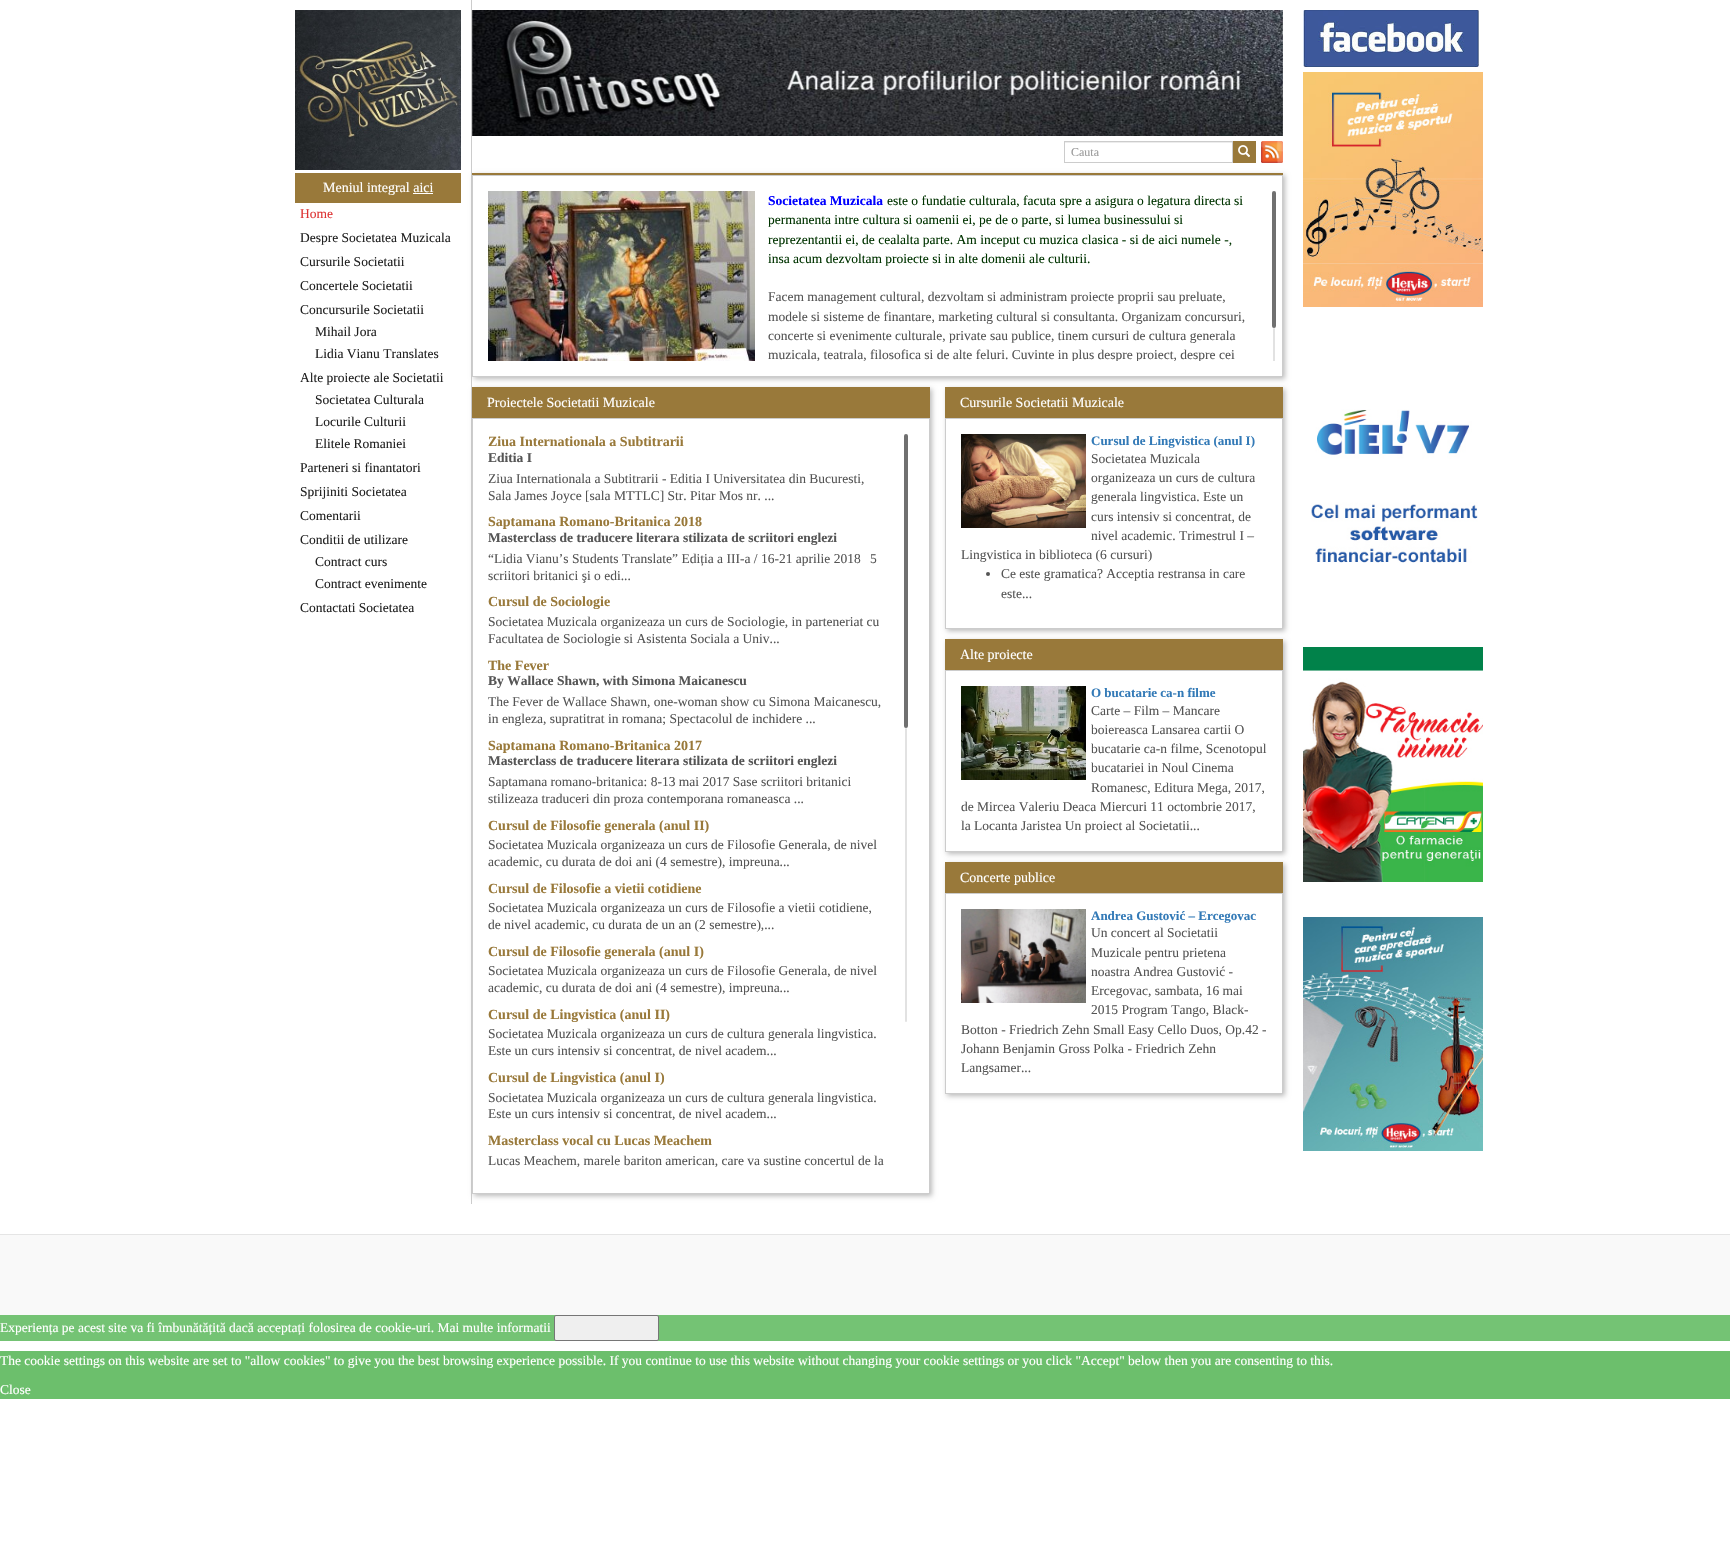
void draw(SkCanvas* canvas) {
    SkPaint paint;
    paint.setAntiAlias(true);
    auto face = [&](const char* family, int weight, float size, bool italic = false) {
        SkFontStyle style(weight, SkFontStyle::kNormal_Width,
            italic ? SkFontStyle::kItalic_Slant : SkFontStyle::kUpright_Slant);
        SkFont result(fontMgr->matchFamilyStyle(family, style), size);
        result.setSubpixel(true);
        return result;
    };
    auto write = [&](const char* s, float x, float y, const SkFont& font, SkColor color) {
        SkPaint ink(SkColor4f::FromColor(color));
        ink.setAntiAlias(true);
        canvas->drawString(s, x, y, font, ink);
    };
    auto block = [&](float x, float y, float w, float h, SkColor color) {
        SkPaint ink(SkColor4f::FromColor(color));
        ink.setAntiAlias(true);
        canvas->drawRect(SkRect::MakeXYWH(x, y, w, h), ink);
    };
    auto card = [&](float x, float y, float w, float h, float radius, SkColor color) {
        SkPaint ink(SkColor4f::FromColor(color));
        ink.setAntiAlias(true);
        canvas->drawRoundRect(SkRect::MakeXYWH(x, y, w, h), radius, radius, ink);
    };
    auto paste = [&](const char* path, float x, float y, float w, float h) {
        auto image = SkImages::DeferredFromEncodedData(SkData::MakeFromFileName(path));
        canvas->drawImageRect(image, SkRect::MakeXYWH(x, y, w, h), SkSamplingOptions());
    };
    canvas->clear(SK_ColorWHITE);
    paste("pic1.png", 295, 10, 166, 160);
    block(295, 173, 166, 30, SkColorSetRGB(153, 121, 58));
    auto kFont1 = face("Liberation Serif", 400, 14);
    write("Meniul integral aici", 323, 192, kFont1, SK_ColorWHITE);
    block(413, 193, 20, 1, SK_ColorWHITE);
    auto kFont2 = face("Liberation Serif", 400, 13.5f);
    write("Home", 300, 218, kFont2, SkColorSetRGB(221, 51, 51));
    write("Despre Societatea Muzicala", 300, 242, kFont2, SkColorSetRGB(33, 33, 33));
    write("Cursurile Societatii", 300, 266, kFont2, SkColorSetRGB(33, 33, 33));
    write("Concertele Societatii", 300, 290, kFont2, SkColorSetRGB(33, 33, 33));
    write("Concursurile Societatii", 300, 314, kFont2, SkColorSetRGB(33, 33, 33));
    write("Mihail Jora", 315, 336, kFont2, SkColorSetRGB(33, 33, 33));
    write("Lidia Vianu Translates", 315, 358, kFont2, SkColorSetRGB(33, 33, 33));
    write("Alte proiecte ale Societatii", 300, 382, kFont2, SkColorSetRGB(33, 33, 33));
    write("Societatea Culturala", 315, 404, kFont2, SkColorSetRGB(33, 33, 33));
    write("Locurile Culturii", 315, 426, kFont2, SkColorSetRGB(33, 33, 33));
    write("Elitele Romaniei", 315, 448, kFont2, SkColorSetRGB(33, 33, 33));
    write("Parteneri si finantatori", 300, 472, kFont2, SkColorSetRGB(33, 33, 33));
    write("Sprijiniti Societatea", 300, 496, kFont2, SkColorSetRGB(33, 33, 33));
    write("Comentarii", 300, 520, kFont2, SkColorSetRGB(33, 33, 33));
    write("Conditii de utilizare", 300, 544, kFont2, SkColorSetRGB(33, 33, 33));
    write("Contract curs", 315, 566, kFont2, SkColorSetRGB(33, 33, 33));
    write("Contract evenimente", 315, 588, kFont2, SkColorSetRGB(33, 33, 33));
    write("Contactati Societatea", 300, 612, kFont2, SkColorSetRGB(33, 33, 33));
    block(471, 0, 1, 1204, SkColorSetRGB(204, 204, 204));
    paste("pic2.png", 472, 10, 811, 126);
    block(1065, 142, 167, 1, SkColorSetRGB(236, 236, 236));
    paint.setStyle(SkPaint::kStroke_Style);
    paint.setStrokeWidth(1);
    paint.setColor(SkColorSetRGB(204, 204, 204));
    canvas->drawRect(SkRect::MakeXYWH(1064.5f, 141.5f, 168, 21), paint);
    auto kFont3 = face("Liberation Serif", 400, 12);
    write("Cauta", 1071, 156, kFont3, SkColorSetRGB(153, 153, 153));
    block(1233, 141, 23, 22, SkColorSetRGB(153, 121, 58));
    paste("pic3.png", 1238, 145, 12, 12);
    paste("pic4.png", 1261, 141, 22, 22);
    canvas->save();
    canvas->clipPath(SkPathBuilder(SkPathFillType::kEvenOdd).moveTo(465, 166).lineTo(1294, 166).lineTo(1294, 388).lineTo(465, 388).close().moveTo(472, 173).lineTo(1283, 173).lineTo(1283, 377).lineTo(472, 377).close().detach(), true);
    paint.setStyle(SkPaint::kFill_Style);
    paint.setColor(SkColorSetRGB(187, 187, 187));
    paint.setMaskFilter(SkMaskFilter::MakeBlur(kNormal_SkBlurStyle, 2.5f));
    canvas->drawRect(SkRect::MakeXYWH(474, 175, 811, 204), paint);
    paint.setMaskFilter(nullptr);
    canvas->restore();
    block(472, 173, 811, 2, SkColorSetRGB(153, 121, 58));
    paint.setStyle(SkPaint::kStroke_Style);
    paint.setColor(SkColorSetRGB(204, 204, 204));
    canvas->drawRect(SkRect::MakeXYWH(472.5f, 175.5f, 810, 201), paint);
    paste("pic5.png", 488, 191, 267, 170);
    auto kFont4 = face("Liberation Serif", 700, 13.5f);
    write("Societatea Muzicala", 768, 205, kFont4, SkColorSetRGB(0, 0, 255));
    write("este o fundatie culturala, facuta spre a asigura o legatura directa si", 887, 205, kFont2, SkColorSetRGB(0, 51, 0));
    write("permanenta intre cultura si oamenii ei, pe de o parte, si lumea businessului si", 768, 224, kFont2, SkColorSetRGB(0, 51, 0));
    write("reprezentantii ei, de cealalta parte. Am inceput cu muzica clasica - si de aici numele -,", 768, 244, kFont2, SkColorSetRGB(0, 51, 0));
    write("insa acum dezvoltam proiecte si in alte domenii ale culturii.", 768, 263, kFont2, SkColorSetRGB(0, 51, 0));
    write("Facem management cultural, dezvoltam si administram proiecte proprii sau preluate,", 768, 301, kFont2, SkColorSetRGB(85, 85, 85));
    write("modele si sisteme de finantare, marketing cultural si consultanta. Organizam concursuri,", 768, 321, kFont2, SkColorSetRGB(85, 85, 85));
    write("concerte si evenimente culturale, private sau publice, tinem cursuri de cultura generala", 768, 340, kFont2, SkColorSetRGB(85, 85, 85));
    canvas->save();
    canvas->clipRect(SkRect::MakeXYWH(488, 191, 764, 170));
    write("muzicala, teatrala, filosofica si de alte feluri. Cuvinte in plus despre proiect, despre cei", 768, 359, kFont2, SkColorSetRGB(85, 85, 85));
    canvas->restore();
    card(1272, 191, 4, 137, 2, SkColorSetRGB(112, 112, 112));
    paint.setStyle(SkPaint::kFill_Style);
    paint.setColor(SkColorSetRGB(226, 226, 226));
    canvas->drawPath(SkPathBuilder().moveTo(1274, 328).cubicTo(1274.5f, 328, 1275, 328.5f, 1275, 329).lineTo(1275, 361).lineTo(1273, 361).lineTo(1273, 329).cubicTo(1273, 328.5f, 1273.5f, 328, 1274, 328).close().detach(), paint);
    canvas->save();
    canvas->clipPath(SkPathBuilder(SkPathFillType::kEvenOdd).moveTo(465, 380).lineTo(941, 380).lineTo(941, 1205).lineTo(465, 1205).close().moveTo(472, 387).lineTo(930, 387).lineTo(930, 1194).lineTo(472, 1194).close().detach(), true);
    paint.setColor(SkColorSetRGB(187, 187, 187));
    paint.setMaskFilter(SkMaskFilter::MakeBlur(kNormal_SkBlurStyle, 2.5f));
    canvas->drawRect(SkRect::MakeXYWH(474, 389, 458, 807), paint);
    paint.setMaskFilter(nullptr);
    canvas->restore();
    block(472, 387, 458, 31, SkColorSetRGB(153, 121, 58));
    write("Proiectele Societatii Muzicale", 487, 407, kFont1, SK_ColorWHITE);
    paint.setStyle(SkPaint::kStroke_Style);
    paint.setColor(SkColorSetRGB(204, 204, 204));
    canvas->drawRect(SkRect::MakeXYWH(472.5f, 418.5f, 457, 775), paint);
    auto kFont5 = face("Liberation Serif", 700, 14);
    write("Ziua Internationala a Subtitrarii", 488, 446, kFont5, SkColorSetRGB(153, 121, 58));
    write("Editia I", 488, 462, kFont4, SkColorSetRGB(85, 85, 85));
    write("Ziua Internationala a Subtitrarii - Editia I Universitatea din Bucuresti,", 488, 483, kFont2, SkColorSetRGB(85, 85, 85));
    write("Sala James Joyce [sala MTTLC] Str. Pitar Mos nr. ...", 488, 500, kFont2, SkColorSetRGB(85, 85, 85));
    write("Saptamana Romano-Britanica 2018", 488, 526, kFont5, SkColorSetRGB(153, 121, 58));
    write("Masterclass de traducere literara stilizata de scriitori englezi", 488, 542, kFont4, SkColorSetRGB(85, 85, 85));
    write("“Lidia Vianu’s Students Translate” Ediția a III-a / 16-21 aprilie 2018", 488, 563, kFont2, SkColorSetRGB(85, 85, 85));
    write("5", 870, 563, kFont2, SkColorSetRGB(85, 85, 85));
    write("scriitori britanici şi o edi...", 488, 580, kFont2, SkColorSetRGB(85, 85, 85));
    write("Cursul de Sociologie", 488, 606, kFont5, SkColorSetRGB(153, 121, 58));
    write("Societatea Muzicala organizeaza un curs de Sociologie, in parteneriat cu", 488, 626, kFont2, SkColorSetRGB(85, 85, 85));
    write("Facultatea de Sociologie si Asistenta Sociala a Univ...", 488, 643, kFont2, SkColorSetRGB(85, 85, 85));
    canvas->save();
    canvas->clipRect(SkRect::MakeXYWH(488, 434, 396, 744));
    write("The Fever", 488, 670, kFont5, SkColorSetRGB(153, 121, 58));
    canvas->restore();
    write("By Wallace Shawn, with Simona Maicanescu", 488, 685, kFont4, SkColorSetRGB(85, 85, 85));
    write("The Fever de Wallace Shawn, one-woman show cu Simona Maicanescu,", 488, 706, kFont2, SkColorSetRGB(85, 85, 85));
    write("in engleza, supratitrat in romana; Spectacolul de inchidere ...", 488, 723, kFont2, SkColorSetRGB(85, 85, 85));
    write("Saptamana Romano-Britanica 2017", 488, 750, kFont5, SkColorSetRGB(153, 121, 58));
    write("Masterclass de traducere literara stilizata de scriitori englezi", 488, 765, kFont4, SkColorSetRGB(85, 85, 85));
    write("Saptamana romano-britanica: 8-13 mai 2017 Sase scriitori britanici", 488, 786, kFont2, SkColorSetRGB(85, 85, 85));
    write("stilizeaza traduceri din proza contemporana romaneasca ...", 488, 803, kFont2, SkColorSetRGB(85, 85, 85));
    write("Cursul de Filosofie generala (anul II)", 488, 830, kFont5, SkColorSetRGB(153, 121, 58));
    write("Societatea Muzicala organizeaza un curs de Filosofie Generala, de nivel", 488, 849, kFont2, SkColorSetRGB(85, 85, 85));
    write("academic, cu durata de doi ani (4 semestre), impreuna...", 488, 866, kFont2, SkColorSetRGB(85, 85, 85));
    write("Cursul de Filosofie a vietii cotidiene", 488, 893, kFont5, SkColorSetRGB(153, 121, 58));
    write("Societatea Muzicala organizeaza un curs de Filosofie a vietii cotidiene,", 488, 912, kFont2, SkColorSetRGB(85, 85, 85));
    write("de nivel academic, cu durata de un an (2 semestre),...", 488, 929, kFont2, SkColorSetRGB(85, 85, 85));
    write("Cursul de Filosofie generala (anul I)", 488, 956, kFont5, SkColorSetRGB(153, 121, 58));
    write("Societatea Muzicala organizeaza un curs de Filosofie Generala, de nivel", 488, 975, kFont2, SkColorSetRGB(85, 85, 85));
    write("academic, cu durata de doi ani (4 semestre), impreuna...", 488, 992, kFont2, SkColorSetRGB(85, 85, 85));
    write("Cursul de Lingvistica (anul II)", 488, 1019, kFont5, SkColorSetRGB(153, 121, 58));
    write("Societatea Muzicala organizeaza un curs de cultura generala lingvistica.", 488, 1038, kFont2, SkColorSetRGB(85, 85, 85));
    write("Este un curs intensiv si concentrat, de nivel academ...", 488, 1055, kFont2, SkColorSetRGB(85, 85, 85));
    write("Cursul de Lingvistica (anul I)", 488, 1082, kFont5, SkColorSetRGB(153, 121, 58));
    write("Societatea Muzicala organizeaza un curs de cultura generala lingvistica.", 488, 1102, kFont2, SkColorSetRGB(85, 85, 85));
    write("Este un curs intensiv si concentrat, de nivel academ...", 488, 1118, kFont2, SkColorSetRGB(85, 85, 85));
    write("Masterclass vocal cu Lucas Meachem", 488, 1145, kFont5, SkColorSetRGB(153, 121, 58));
    write("Lucas Meachem, marele bariton american, care va sustine concertul de la", 488, 1165, kFont2, SkColorSetRGB(85, 85, 85));
    card(904, 434, 4, 294, 2, SkColorSetRGB(112, 112, 112));
    card(905, 728, 2, 294, 1, SkColorSetRGB(226, 226, 226));
    canvas->save();
    canvas->clipPath(SkPathBuilder(SkPathFillType::kEvenOdd).moveTo(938, 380).lineTo(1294, 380).lineTo(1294, 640).lineTo(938, 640).close().moveTo(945, 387).lineTo(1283, 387).lineTo(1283, 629).lineTo(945, 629).close().detach(), true);
    paint.setStyle(SkPaint::kFill_Style);
    paint.setColor(SkColorSetRGB(187, 187, 187));
    paint.setMaskFilter(SkMaskFilter::MakeBlur(kNormal_SkBlurStyle, 2.5f));
    canvas->drawRect(SkRect::MakeXYWH(947, 389, 338, 242), paint);
    paint.setMaskFilter(nullptr);
    canvas->restore();
    block(945, 387, 338, 31, SkColorSetRGB(153, 121, 58));
    write("Cursurile Societatii Muzicale", 960, 407, kFont1, SK_ColorWHITE);
    paint.setStyle(SkPaint::kStroke_Style);
    paint.setColor(SkColorSetRGB(204, 204, 204));
    canvas->drawRect(SkRect::MakeXYWH(945.5f, 418.5f, 337, 210), paint);
    paste("pic6.png", 961, 434, 125, 94);
    auto kFont6 = face("Liberation Serif", 700, 13);
    write("Cursul de Lingvistica (anul I)", 1091, 445, kFont6, SkColorSetRGB(51, 122, 183));
    write("Societatea Muzicala", 1091, 463, kFont2, SkColorSetRGB(85, 85, 85));
    write("organizeaza un curs de cultura", 1091, 482, kFont2, SkColorSetRGB(85, 85, 85));
    write("generala lingvistica. Este un", 1091, 501, kFont2, SkColorSetRGB(85, 85, 85));
    write("curs intensiv si concentrat, de", 1091, 521, kFont2, SkColorSetRGB(85, 85, 85));
    write("nivel academic. Trimestrul I –", 1091, 540, kFont2, SkColorSetRGB(85, 85, 85));
    write("Lingvistica in biblioteca (6 cursuri)", 961, 559, kFont2, SkColorSetRGB(85, 85, 85));
    paint.setStyle(SkPaint::kFill_Style);
    paint.setColor(SkColorSetRGB(85, 85, 85));
    canvas->drawCircle(988, 574, 2, paint);
    write("Ce este gramatica? Acceptia restransa in care", 1001, 578, kFont2, SkColorSetRGB(85, 85, 85));
    write("este...", 1001, 598, kFont2, SkColorSetRGB(85, 85, 85));
    canvas->save();
    canvas->clipPath(SkPathBuilder(SkPathFillType::kEvenOdd).moveTo(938, 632).lineTo(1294, 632).lineTo(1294, 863).lineTo(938, 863).close().moveTo(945, 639).lineTo(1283, 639).lineTo(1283, 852).lineTo(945, 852).close().detach(), true);
    paint.setColor(SkColorSetRGB(187, 187, 187));
    paint.setMaskFilter(SkMaskFilter::MakeBlur(kNormal_SkBlurStyle, 2.5f));
    canvas->drawRect(SkRect::MakeXYWH(947, 641, 338, 213), paint);
    paint.setMaskFilter(nullptr);
    canvas->restore();
    block(945, 639, 338, 31, SkColorSetRGB(153, 121, 58));
    write("Alte proiecte", 960, 659, kFont1, SK_ColorWHITE);
    paint.setStyle(SkPaint::kStroke_Style);
    paint.setColor(SkColorSetRGB(204, 204, 204));
    canvas->drawRect(SkRect::MakeXYWH(945.5f, 670.5f, 337, 181), paint);
    paste("pic7.png", 961, 686, 125, 94);
    write("O bucatarie ca-n filme", 1091, 697, kFont6, SkColorSetRGB(51, 122, 183));
    write("Carte – Film – Mancare", 1091, 715, kFont2, SkColorSetRGB(85, 85, 85));
    write("boiereasca Lansarea cartii O", 1091, 734, kFont2, SkColorSetRGB(85, 85, 85));
    write("bucatarie ca-n filme, Scenotopul", 1091, 753, kFont2, SkColorSetRGB(85, 85, 85));
    write("bucatariei in Noul Cinema", 1091, 772, kFont2, SkColorSetRGB(85, 85, 85));
    write("Romanesc, Editura Mega, 2017,", 1091, 792, kFont2, SkColorSetRGB(85, 85, 85));
    write("de Mircea Valeriu Deaca Miercuri 11 octombrie 2017,", 961, 811, kFont2, SkColorSetRGB(85, 85, 85));
    write("la Locanta Jaristea Un proiect al Societatii...", 961, 830, kFont2, SkColorSetRGB(85, 85, 85));
    canvas->save();
    canvas->clipPath(SkPathBuilder(SkPathFillType::kEvenOdd).moveTo(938, 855).lineTo(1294, 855).lineTo(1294, 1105).lineTo(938, 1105).close().moveTo(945, 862).lineTo(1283, 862).lineTo(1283, 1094).lineTo(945, 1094).close().detach(), true);
    paint.setStyle(SkPaint::kFill_Style);
    paint.setColor(SkColorSetRGB(187, 187, 187));
    paint.setMaskFilter(SkMaskFilter::MakeBlur(kNormal_SkBlurStyle, 2.5f));
    canvas->drawRect(SkRect::MakeXYWH(947, 864, 338, 232), paint);
    paint.setMaskFilter(nullptr);
    canvas->restore();
    block(945, 862, 338, 31, SkColorSetRGB(153, 121, 58));
    write("Concerte publice", 960, 882, kFont1, SK_ColorWHITE);
    paint.setStyle(SkPaint::kStroke_Style);
    paint.setColor(SkColorSetRGB(204, 204, 204));
    canvas->drawRect(SkRect::MakeXYWH(945.5f, 893.5f, 337, 200), paint);
    paste("pic8.png", 961, 909, 125, 94);
    write("Andrea Gustović – Ercegovac", 1091, 920, kFont6, SkColorSetRGB(51, 122, 183));
    write("Un concert al Societatii", 1091, 937, kFont2, SkColorSetRGB(85, 85, 85));
    write("Muzicale pentru prietena", 1091, 957, kFont2, SkColorSetRGB(85, 85, 85));
    write("noastra Andrea Gustović -", 1091, 976, kFont2, SkColorSetRGB(85, 85, 85));
    write("Ercegovac, sambata, 16 mai", 1091, 995, kFont2, SkColorSetRGB(85, 85, 85));
    write("2015 Program Tango, Black-", 1091, 1014, kFont2, SkColorSetRGB(85, 85, 85));
    write("Botton - Friedrich Zehn Small Easy Cello Duos, Op.42 -", 961, 1034, kFont2, SkColorSetRGB(85, 85, 85));
    write("Johann Benjamin Gross Polka - Friedrich Zehn", 961, 1053, kFont2, SkColorSetRGB(85, 85, 85));
    write("Langsamer...", 961, 1072, kFont2, SkColorSetRGB(85, 85, 85));
    paste("pic9.png", 1303, 10, 176, 57);
    paste("pic10.png", 1303, 72, 180, 235);
    paste("pic11.png", 1311, 409, 167, 154);
    paste("pic12.png", 1303, 647, 180, 235);
    paste("pic13.png", 1303, 917, 180, 234);
    block(0, 1235, 1730, 80, SkColorSetRGB(249, 249, 249));
    block(0, 1234, 1730, 1, SkColorSetRGB(229, 229, 229));
    block(0, 1315, 1730, 26, SkColorSetRGB(116, 195, 116));
    write("Experiența pe acest site va fi îmbunătățită dacă acceptați folosirea de cookie-uri. Mai multe informatii", 0, 1332, kFont2, SK_ColorWHITE);
    paint.setStyle(SkPaint::kFill_Style);
    paint.setColor(SkColorSetRGB(239, 239, 239));
    canvas->drawRoundRect(SkRect::MakeXYWH(554.5f, 1315.5f, 104, 25), 1.5f, 1.5f, paint);
    paint.setStyle(SkPaint::kStroke_Style);
    paint.setColor(SkColorSetRGB(118, 118, 118));
    canvas->drawRoundRect(SkRect::MakeXYWH(554.5f, 1315.5f, 104, 25), 1.5f, 1.5f, paint);
    block(0, 1351, 1730, 48, SkColorSetRGB(108, 191, 108));
    write("The cookie settings on this website are set to \"allow cookies\" to give you the best browsing experience possible. If you continue to use this website without changing your cookie settings or you click \"Accept\" below then you are consenting to this.", 0, 1365, kFont2, SK_ColorWHITE);
    write("Close", 0, 1394, kFont2, SK_ColorWHITE);
}
